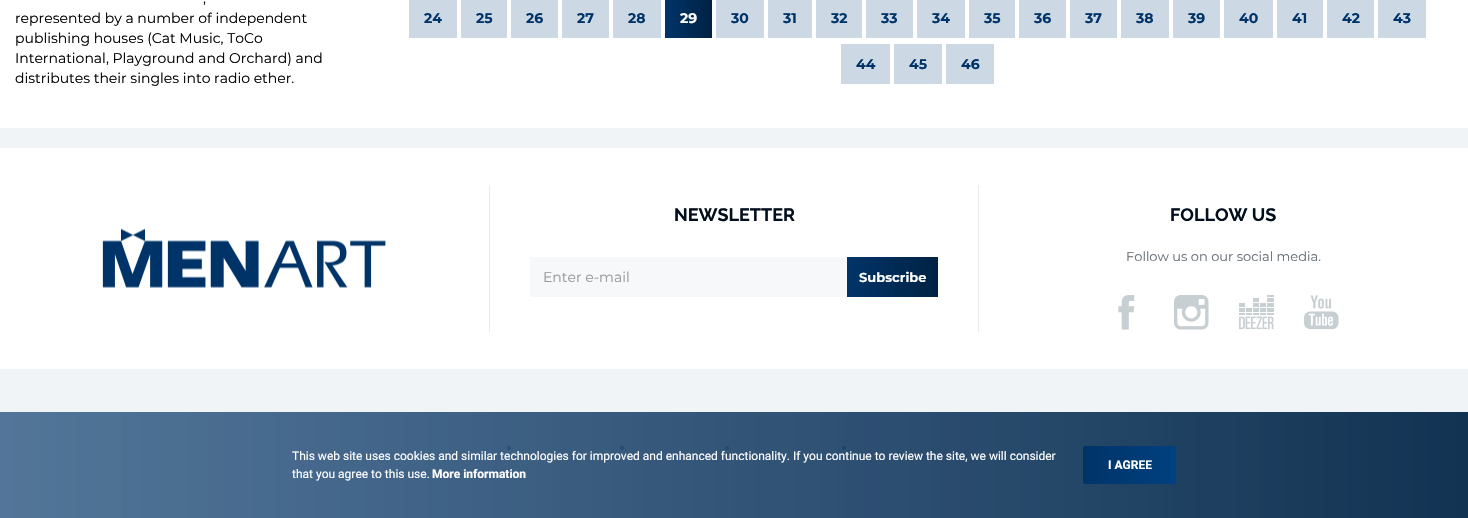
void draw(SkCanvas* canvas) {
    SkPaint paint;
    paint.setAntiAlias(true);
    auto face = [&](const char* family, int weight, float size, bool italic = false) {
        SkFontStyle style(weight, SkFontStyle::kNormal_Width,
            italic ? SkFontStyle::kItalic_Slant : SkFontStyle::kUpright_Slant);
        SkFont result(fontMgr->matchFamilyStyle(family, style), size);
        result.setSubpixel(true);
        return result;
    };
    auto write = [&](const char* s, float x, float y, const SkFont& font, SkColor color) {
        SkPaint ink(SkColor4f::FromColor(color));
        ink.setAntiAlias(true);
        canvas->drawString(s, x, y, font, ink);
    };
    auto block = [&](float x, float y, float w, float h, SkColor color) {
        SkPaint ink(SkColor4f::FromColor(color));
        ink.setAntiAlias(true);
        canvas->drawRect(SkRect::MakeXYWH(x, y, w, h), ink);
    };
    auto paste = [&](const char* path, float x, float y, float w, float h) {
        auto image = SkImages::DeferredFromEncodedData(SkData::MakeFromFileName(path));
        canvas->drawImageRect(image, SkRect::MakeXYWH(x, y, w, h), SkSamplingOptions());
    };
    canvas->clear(SkColorSetRGB(240, 244, 246));
    block(0, 0, 1468, 128, SK_ColorWHITE);
    auto kFont1 = face("Montserrat", 400, 14);
    write(",", 203, 3, kFont1, SK_ColorBLACK);
    write("represented by a number of independent", 15, 23, kFont1, SK_ColorBLACK);
    write("publishing houses (Cat Music, ToCo", 15, 43, kFont1, SK_ColorBLACK);
    write("International, Playground and Orchard) and", 15, 63, kFont1, SK_ColorBLACK);
    write("distributes their singles into radio ether.", 15, 83, kFont1, SK_ColorBLACK);
    block(409, 0, 48, 38, SkColorSetRGB(204, 217, 229));
    auto kFont2 = face("Montserrat", 700, 14);
    write("24", 424, 23, kFont2, SkColorSetRGB(0, 52, 104));
    block(461, 0, 46, 38, SkColorSetRGB(204, 217, 229));
    write("25", 476, 23, kFont2, SkColorSetRGB(0, 52, 104));
    block(511, 0, 47, 38, SkColorSetRGB(204, 217, 229));
    write("26", 526, 23, kFont2, SkColorSetRGB(0, 52, 104));
    block(562, 0, 47, 38, SkColorSetRGB(204, 217, 229));
    write("27", 577, 23, kFont2, SkColorSetRGB(0, 52, 104));
    block(613, 0, 48, 38, SkColorSetRGB(204, 217, 229));
    write("28", 628, 23, kFont2, SkColorSetRGB(0, 52, 104));
    {
        const SkColor colors[] = {SkColorSetRGB(0, 52, 104), SkColorSetRGB(0, 34, 68)};
        const float stops[] = {0, 1};
        const SkPoint ends[] = {{665, 18}, {712, 18}};
        paint.setShader(SkGradientShader::MakeLinear(ends, colors, stops, 2, SkTileMode::kClamp));
        paint.setAlpha(255);
    }
    canvas->drawRect(SkRect::MakeXYWH(665, 0, 47, 38), paint);
    write("29", 680, 23, kFont2, SK_ColorWHITE);
    block(716, 0, 48, 38, SkColorSetRGB(204, 217, 229));
    write("30", 731, 23, kFont2, SkColorSetRGB(0, 52, 104));
    block(768, 0, 44, 38, SkColorSetRGB(204, 217, 229));
    write("31", 783, 23, kFont2, SkColorSetRGB(0, 52, 104));
    block(816, 0, 46, 38, SkColorSetRGB(204, 217, 229));
    write("32", 831, 23, kFont2, SkColorSetRGB(0, 52, 104));
    block(866, 0, 47, 38, SkColorSetRGB(204, 217, 229));
    write("33", 881, 23, kFont2, SkColorSetRGB(0, 52, 104));
    block(917, 0, 48, 38, SkColorSetRGB(204, 217, 229));
    write("34", 932, 23, kFont2, SkColorSetRGB(0, 52, 104));
    block(969, 0, 46, 38, SkColorSetRGB(204, 217, 229));
    write("35", 984, 23, kFont2, SkColorSetRGB(0, 52, 104));
    block(1019, 0, 47, 38, SkColorSetRGB(204, 217, 229));
    write("36", 1034, 23, kFont2, SkColorSetRGB(0, 52, 104));
    block(1070, 0, 47, 38, SkColorSetRGB(204, 217, 229));
    write("37", 1085, 23, kFont2, SkColorSetRGB(0, 52, 104));
    block(1121, 0, 48, 38, SkColorSetRGB(204, 217, 229));
    write("38", 1136, 23, kFont2, SkColorSetRGB(0, 52, 104));
    block(1173, 0, 47, 38, SkColorSetRGB(204, 217, 229));
    write("39", 1188, 23, kFont2, SkColorSetRGB(0, 52, 104));
    block(1224, 0, 49, 38, SkColorSetRGB(204, 217, 229));
    write("40", 1239, 23, kFont2, SkColorSetRGB(0, 52, 104));
    block(1277, 0, 46, 38, SkColorSetRGB(204, 217, 229));
    write("41", 1292, 23, kFont2, SkColorSetRGB(0, 52, 104));
    block(1327, 0, 47, 38, SkColorSetRGB(204, 217, 229));
    write("42", 1342, 23, kFont2, SkColorSetRGB(0, 52, 104));
    block(1378, 0, 48, 38, SkColorSetRGB(204, 217, 229));
    write("43", 1393, 23, kFont2, SkColorSetRGB(0, 52, 104));
    block(841, 44, 49, 40, SkColorSetRGB(204, 217, 229));
    write("44", 856, 69, kFont2, SkColorSetRGB(0, 52, 104));
    block(894, 44, 48, 40, SkColorSetRGB(204, 217, 229));
    write("45", 909, 69, kFont2, SkColorSetRGB(0, 52, 104));
    block(946, 44, 48, 40, SkColorSetRGB(204, 217, 229));
    write("46", 961, 69, kFont2, SkColorSetRGB(0, 52, 104));
    block(0, 148, 1468, 221, SK_ColorWHITE);
    paste("pic1.png", 102, 228, 284, 60);
    block(489, 185, 1, 147, SkColorSetRGB(235, 235, 235));
    auto kFont3 = face("Raleway", 100, 18);
    write("NEWSLETTER", 674, 221, kFont3, SkColorSetRGB(3, 15, 29));
    block(530, 257, 317, 40, SkColorSetRGB(247, 248, 249));
    write("Enter e-mail", 543, 282, kFont1, SkColorSetRGB(153, 153, 153));
    {
        const SkColor colors[] = {SkColorSetRGB(0, 52, 104), SkColorSetRGB(0, 34, 68)};
        const float stops[] = {0, 1};
        const SkPoint ends[] = {{847, 277}, {938, 277}};
        paint.setShader(SkGradientShader::MakeLinear(ends, colors, stops, 2, SkTileMode::kClamp));
        paint.setAlpha(255);
    }
    canvas->drawRect(SkRect::MakeXYWH(847, 257, 91, 40), paint);
    auto kFont4 = face("Montserrat", 700, 13);
    write("Subscribe", 859, 282, kFont4, SK_ColorWHITE);
    block(978, 185, 1, 147, SkColorSetRGB(235, 235, 235));
    write("FOLLOW US", 1170, 221, kFont3, SkColorSetRGB(3, 15, 29));
    auto kFont5 = face("Montserrat", 400, 13);
    write("Follow us on our social media.", 1126, 261, kFont5, SkColorSetRGB(104, 111, 119));
    paste("pic2.png", 1118, 295, 17, 35);
    paste("pic3.png", 1174, 295, 35, 35);
    paste("pic4.png", 1239, 295, 35, 35);
    paste("pic5.png", 1304, 295, 35, 35);
    paint.setShader(nullptr);
    paint.setColor(SkColorSetRGB(170, 181, 187));
    canvas->drawCircle(509, 448, 2, paint);
    canvas->drawCircle(622, 448, 2, paint);
    canvas->drawCircle(727, 448, 2, paint);
    canvas->drawCircle(844, 448, 2, paint);
    {
        const SkColor colors[] = {SkColorSetARGB(168, 0, 52, 104), SkColorSetARGB(235, 0, 34, 68)};
        const float stops[] = {0, 1};
        const SkPoint ends[] = {{0, 465}, {1468, 465}};
        paint.setShader(SkGradientShader::MakeLinear(ends, colors, stops, 2, SkTileMode::kClamp));
        paint.setAlpha(255);
    }
    canvas->drawRect(SkRect::MakeXYWH(0, 412, 1468, 106), paint);
    auto kFont6 = face("Roboto", 400, 12);
    write("This web site uses cookies and similar technologies for improved and enhanced functionality. If you continue to review the site, we will consider", 292, 460, kFont6, SK_ColorWHITE);
    write("that you agree to this use.", 292, 478, kFont6, SK_ColorWHITE);
    auto kFont7 = face("Roboto", 700, 12);
    write("More information", 432, 478, kFont7, SK_ColorWHITE);
    {
        const SkColor colors[] = {SkColorSetRGB(0, 52, 104), SkColorSetRGB(0, 64, 127), SkColorSetRGB(0, 52, 104), SkColorSetRGB(0, 34, 68)};
        const float stops[] = {0, 0.33f, 0.67f, 1};
        const SkPoint ends[] = {{1083, 465}, {1362, 465}};
        paint.setShader(SkGradientShader::MakeLinear(ends, colors, stops, 4, SkTileMode::kClamp));
        paint.setAlpha(255);
    }
    canvas->drawRoundRect(SkRect::MakeXYWH(1083, 446, 93, 38), 2, 2, paint);
    write("I AGREE", 1108, 469, kFont7, SK_ColorWHITE);
}
